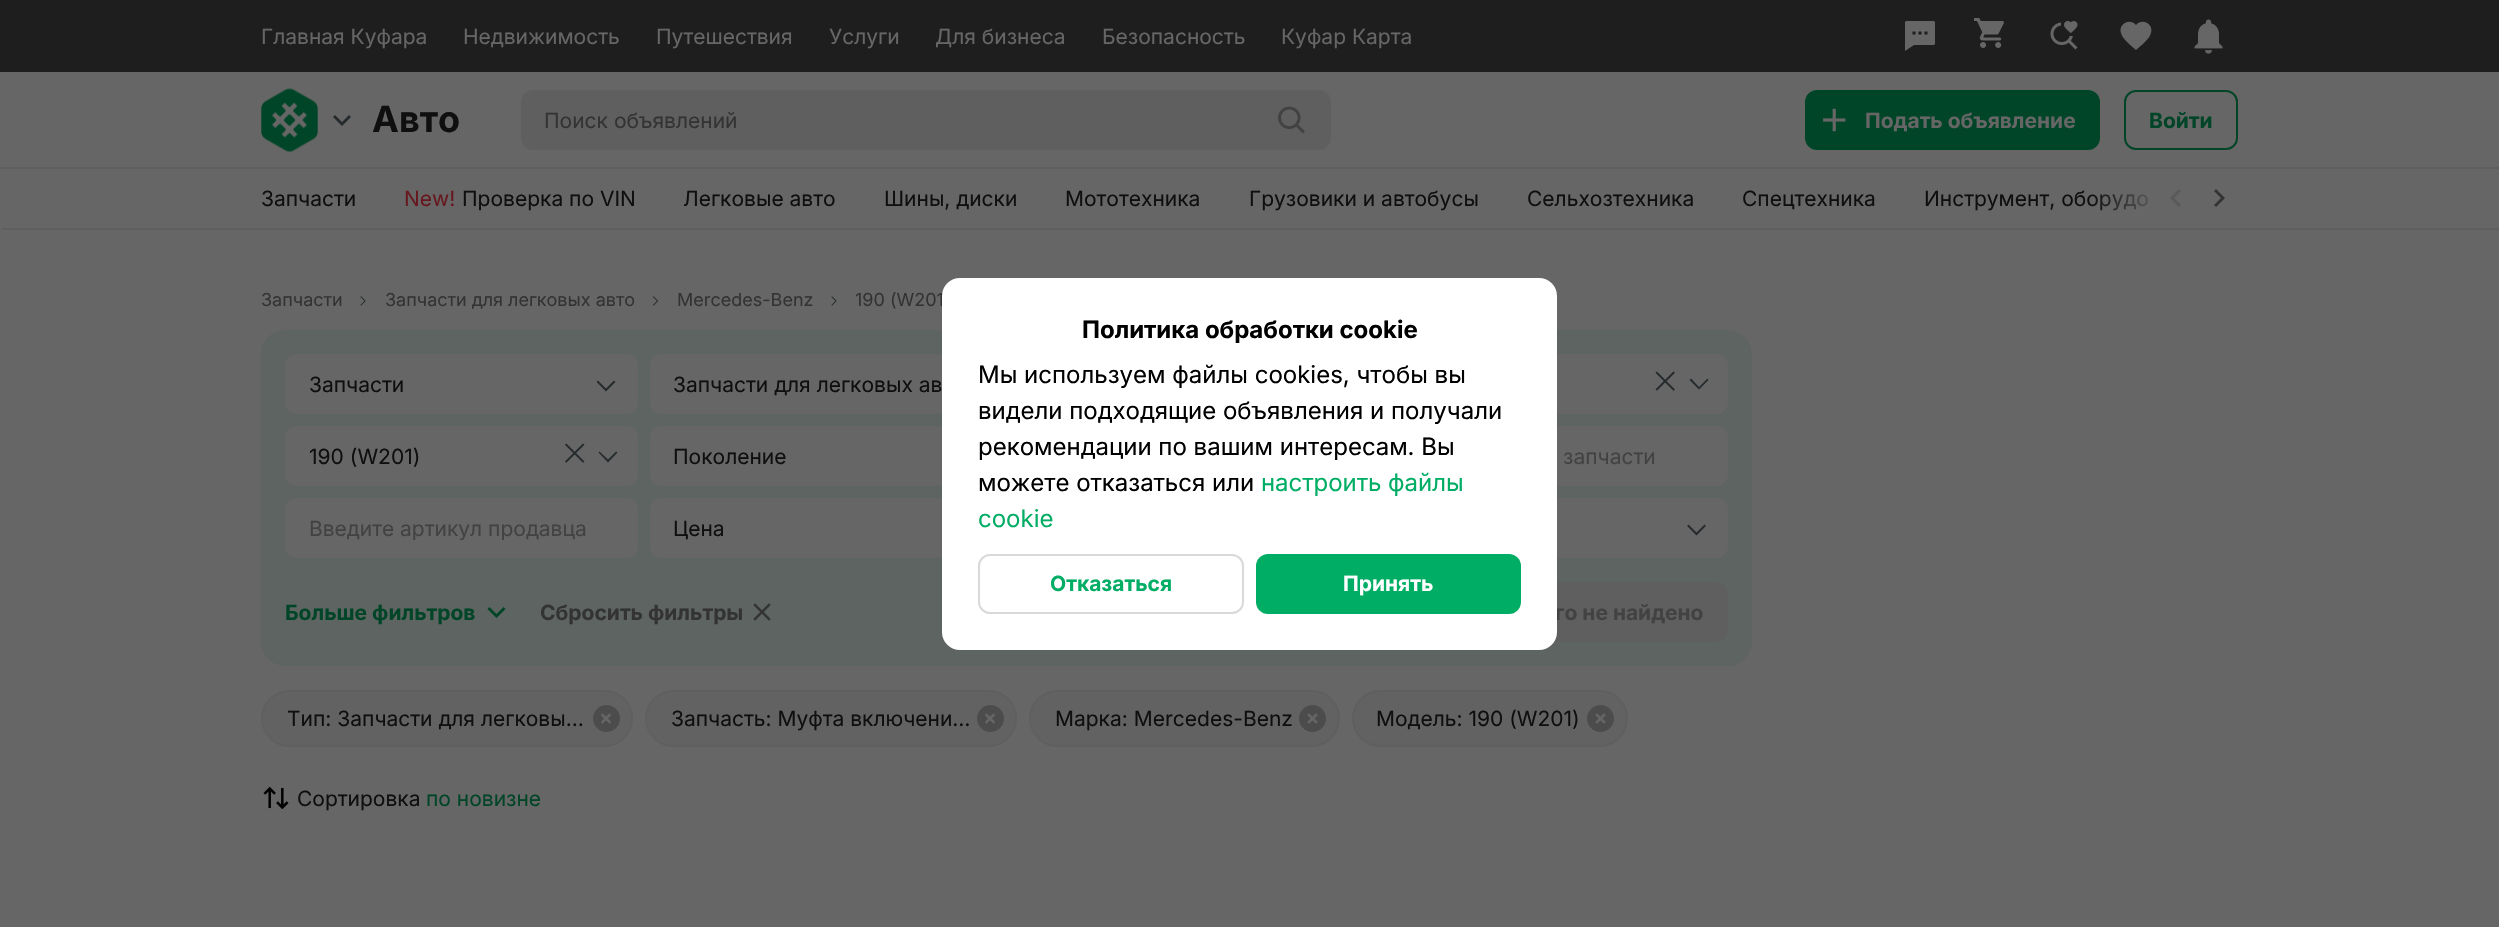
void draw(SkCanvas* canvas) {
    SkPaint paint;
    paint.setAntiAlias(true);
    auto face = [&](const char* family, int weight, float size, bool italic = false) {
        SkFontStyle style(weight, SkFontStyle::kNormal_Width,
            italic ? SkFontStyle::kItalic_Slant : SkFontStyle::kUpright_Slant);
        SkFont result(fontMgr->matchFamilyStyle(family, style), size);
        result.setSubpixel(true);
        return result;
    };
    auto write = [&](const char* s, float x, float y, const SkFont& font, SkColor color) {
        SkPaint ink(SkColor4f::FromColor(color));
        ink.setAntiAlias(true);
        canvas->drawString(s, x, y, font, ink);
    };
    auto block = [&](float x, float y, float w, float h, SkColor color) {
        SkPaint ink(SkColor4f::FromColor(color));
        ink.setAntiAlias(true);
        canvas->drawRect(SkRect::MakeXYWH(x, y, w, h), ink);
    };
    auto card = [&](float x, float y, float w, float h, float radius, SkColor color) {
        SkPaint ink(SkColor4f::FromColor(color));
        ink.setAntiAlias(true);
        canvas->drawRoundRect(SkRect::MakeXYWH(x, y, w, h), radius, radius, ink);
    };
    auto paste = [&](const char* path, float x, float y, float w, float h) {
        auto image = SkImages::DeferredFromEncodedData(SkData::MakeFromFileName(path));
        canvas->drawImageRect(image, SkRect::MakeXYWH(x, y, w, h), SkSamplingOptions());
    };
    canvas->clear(SkColorSetRGB(102, 102, 102));
    block(0, 0, 2499, 72, SkColorSetRGB(30, 30, 30));
    auto kFont1 = face("Inter", 400, 21);
    write("Главная Куфара", 261, 44, kFont1, SkColorSetRGB(102, 102, 102));
    write("Недвижимость", 463, 44, kFont1, SkColorSetRGB(102, 102, 102));
    write("Путешествия", 656, 44, kFont1, SkColorSetRGB(102, 102, 102));
    write("Услуги", 829, 44, kFont1, SkColorSetRGB(102, 102, 102));
    write("Для бизнеса", 935, 44, kFont1, SkColorSetRGB(102, 102, 102));
    write("Безопасность", 1102, 44, kFont1, SkColorSetRGB(102, 102, 102));
    write("Куфар Карта", 1281, 44, kFont1, SkColorSetRGB(102, 102, 102));
    paste("pic1.png", 1905, 21, 30, 30);
    paste("pic2.png", 1974, 18, 30, 30);
    paste("pic3.png", 2050, 21, 28, 29);
    paint.setColor(SkColorSetRGB(102, 102, 102));
    canvas->drawPath(SkPathBuilder().moveTo(2136, 50).cubicTo(2131, 45.5f, 2124, 40.5f, 2121.5f, 34.5f).cubicTo(2117, 24.5f, 2129.5f, 17.5f, 2136, 25).cubicTo(2142.5f, 17.5f, 2155, 24.5f, 2150.5f, 34.5f).cubicTo(2148, 40.5f, 2141, 45.5f, 2136, 50).close().detach(), paint);
    paste("pic4.png", 2194, 19, 29, 35);
    block(0, 167, 2499, 2, SkColorSetRGB(95, 95, 95));
    paste("pic5.png", 261, 88, 57, 64);
    paint.setColor(SkColorSetRGB(37, 42, 45));
    canvas->drawPath(SkPathBuilder(SkPathFillType::kEvenOdd).moveTo(349, 115).lineTo(351, 117).lineTo(342, 126).lineTo(333, 117).lineTo(335, 115).lineTo(342, 122).close().detach(), paint);
    auto kFont2 = face("Inter", 700, 36);
    write("Авто", 372, 132, kFont2, SkColorSetRGB(15, 15, 15));
    card(521, 90, 810, 60, 12, SkColorSetRGB(95, 95, 95));
    write("Поиск объявлений", 544, 128, kFont1, SkColorSetRGB(51, 51, 51));
    paste("pic6.png", 1278, 106, 27, 28);
    card(1805, 90, 295, 60, 12, SkColorSetRGB(0, 69, 40));
    paste("pic7.png", 1823, 108, 23, 24);
    auto kFont3 = face("Inter", 700, 21);
    write("Подать объявление", 1865, 128, kFont3, SkColorSetRGB(102, 102, 102));
    paint.setStyle(SkPaint::kStroke_Style);
    paint.setStrokeWidth(2);
    paint.setColor(SkColorSetRGB(0, 69, 40));
    canvas->drawRoundRect(SkRect::MakeXYWH(2125, 91, 112, 58), 11, 11, paint);
    write("Войти", 2149, 128, kFont3, SkColorSetRGB(0, 69, 40));
    paint.setStyle(SkPaint::kFill_Style);
    paint.setColor(SkColorSetRGB(95, 95, 95));
    canvas->drawPath(SkPathBuilder().moveTo(2, 228).lineTo(2, 230).lineTo(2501, 230).lineTo(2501, 170).lineTo(2499, 170).lineTo(2499, 228).close().detach(), paint);
    write("Запчасти", 261, 206, kFont1, SkColorSetRGB(15, 15, 15));
    write("New!", 404, 206, kFont1, SkColorSetRGB(102, 24, 30));
    write("Проверка по VIN", 462, 206, kFont1, SkColorSetRGB(15, 15, 15));
    write("Легковые авто", 683, 206, kFont1, SkColorSetRGB(15, 15, 15));
    write("Шины, диски", 884, 206, kFont1, SkColorSetRGB(15, 15, 15));
    write("Мототехника", 1065, 206, kFont1, SkColorSetRGB(15, 15, 15));
    write("Грузовики и автобусы", 1249, 206, kFont1, SkColorSetRGB(15, 15, 15));
    write("Сельхозтехника", 1527, 206, kFont1, SkColorSetRGB(15, 15, 15));
    write("Спецтехника", 1742, 206, kFont1, SkColorSetRGB(15, 15, 15));
    write("Инструмент, оборудо", 1924, 206, kFont1, SkColorSetRGB(15, 15, 15));
    paint.setColor(SkColorSetRGB(89, 89, 89));
    canvas->drawPath(SkPathBuilder().moveTo(2181, 205).lineTo(2174, 198).lineTo(2181, 191).lineTo(2179, 189).lineTo(2170, 198).lineTo(2179, 207).close().detach(), paint);
    paint.setColor(SkColorSetRGB(51, 51, 51));
    canvas->drawPath(SkPathBuilder().moveTo(2214, 191).lineTo(2221, 198).lineTo(2214, 205).lineTo(2216, 207).lineTo(2225, 198).lineTo(2216, 189).close().detach(), paint);
    {
        const SkColor colors[] = {SkColorSetARGB(0, 102, 102, 102), SkColorSetRGB(102, 102, 102), SkColorSetRGB(102, 102, 102)};
        const float stops[] = {0, 0.5f, 1};
        const SkPoint ends[] = {{2090, 197}, {2240, 197}};
        paint.setShader(SkGradientShader::MakeLinear(ends, colors, stops, 3, SkTileMode::kClamp));
        paint.setAlpha(255);
    }
    canvas->drawRect(SkRect::MakeXYWH(2093, 194, 55, 17), paint);
    auto kFont4 = face("Inter", 400, 18);
    write("Запчасти", 261, 306, kFont4, SkColorSetRGB(51, 51, 51));
    paste("pic8.png", 360, 296, 6, 10);
    write("Запчасти для легковых авто", 385, 306, kFont4, SkColorSetRGB(51, 51, 51));
    paste("pic9.png", 652, 296, 7, 10);
    write("Mercedes-Benz", 677, 306, kFont4, SkColorSetRGB(51, 51, 51));
    paste("pic8.png", 831, 296, 6, 10);
    write("190 (W201", 855, 306, kFont4, SkColorSetRGB(51, 51, 51));
    card(261, 330, 1491, 336, 24, SkColorSetRGB(94, 100, 97));
    card(285, 354, 353, 60, 12, SkColorSetRGB(102, 102, 102));
    write("Запчасти", 309, 392, kFont1, SkColorSetRGB(15, 15, 15));
    paint.setStyle(SkPaint::kStroke_Style);
    paint.setStrokeCap(SkPaint::kSquare_Cap);
    paint.setShader(nullptr);
    paint.setColor(SkColorSetRGB(37, 42, 45));
    canvas->drawPath(SkPathBuilder().moveTo(598, 382).lineTo(606, 390).lineTo(614, 382).detach(), paint);
    card(650, 354, 351, 60, 12, SkColorSetRGB(102, 102, 102));
    write("Запчасти для легковых ав", 673, 392, kFont1, SkColorSetRGB(15, 15, 15));
    card(1377, 354, 351, 60, 12, SkColorSetRGB(102, 102, 102));
    paste("pic10.png", 1655, 371, 20, 20);
    paint.setStyle(SkPaint::kFill_Style);
    canvas->drawPath(SkPathBuilder(SkPathFillType::kEvenOdd).moveTo(1699, 387).lineTo(1691, 378.5f).lineTo(1689.5f, 380).lineTo(1699, 389.5f).lineTo(1708.5f, 380).lineTo(1707.5f, 378.5f).close().detach(), paint);
    card(285, 426, 353, 60, 12, SkColorSetRGB(102, 102, 102));
    write("190 (W201)", 309, 464, kFont1, SkColorSetRGB(15, 15, 15));
    paste("pic11.png", 565, 443, 20, 20);
    canvas->drawPath(SkPathBuilder(SkPathFillType::kEvenOdd).moveTo(608, 459.5f).lineTo(599.5f, 451.5f).lineTo(598.5f, 452.5f).lineTo(608, 462.5f).lineTo(617.5f, 452.5f).lineTo(616, 451.5f).close().detach(), paint);
    card(650, 426, 351, 60, 12, SkColorSetRGB(102, 102, 102));
    write("Поколение", 673, 464, kFont1, SkColorSetRGB(15, 15, 15));
    card(1377, 426, 351, 60, 12, SkColorSetRGB(102, 102, 102));
    write("запчасти", 1563, 464, kFont1, SkColorSetRGB(66, 66, 66));
    card(285, 498, 353, 60, 12, SkColorSetRGB(102, 102, 102));
    canvas->save();
    canvas->clipRect(SkRect::MakeXYWH(309, 515, 305, 25));
    write("Введите артикул продавца", 309, 536, kFont1, SkColorSetRGB(66, 66, 66));
    canvas->restore();
    card(650, 498, 351, 60, 12, SkColorSetRGB(102, 102, 102));
    write("Цена", 673, 536, kFont1, SkColorSetRGB(15, 15, 15));
    card(1377, 498, 351, 60, 12, SkColorSetRGB(102, 102, 102));
    paint.setStyle(SkPaint::kStroke_Style);
    canvas->drawPath(SkPathBuilder().moveTo(1688.5f, 526).lineTo(1696.5f, 534).lineTo(1704.5f, 526).detach(), paint);
    write("Больше фильтров", 285, 620, kFont3, SkColorSetRGB(0, 69, 40));
    paint.setStyle(SkPaint::kFill_Style);
    paint.setColor(SkColorSetRGB(0, 69, 40));
    canvas->drawPath(SkPathBuilder(SkPathFillType::kEvenOdd).moveTo(489.5f, 607).lineTo(496.5f, 614).lineTo(503.5f, 607).lineTo(505.5f, 609).lineTo(496.5f, 618).lineTo(487.5f, 609).close().detach(), paint);
    write("Сбросить фильтры", 540, 620, kFont3, SkColorSetRGB(51, 51, 51));
    paste("pic12.png", 753, 603, 18, 18);
    card(1478, 582, 250, 60, 12, SkColorSetRGB(95, 95, 95));
    write("го не найдено", 1555, 620, kFont3, SkColorSetRGB(66, 66, 66));
    paint.setColor(SkColorSetRGB(98, 98, 98));
    canvas->drawRoundRect(SkRect::MakeXYWH(262, 691, 370, 55), 27.5f, 27.5f, paint);
    paint.setStyle(SkPaint::kStroke_Style);
    paint.setStrokeCap(SkPaint::kButt_Cap);
    paint.setColor(SkColorSetRGB(95, 95, 95));
    canvas->drawRoundRect(SkRect::MakeXYWH(262, 691, 370, 55), 27.5f, 27.5f, paint);
    write("Тип: Запчасти для легковы…", 287, 726, kFont1, SkColorSetRGB(15, 15, 15));
    paint.setStyle(SkPaint::kFill_Style);
    paint.setColor(SkColorSetRGB(76, 76, 76));
    canvas->drawCircle(606.5f, 718.5f, 13.5f, paint);
    paste("pic13.png", 601, 713, 10, 11);
    paint.setColor(SkColorSetRGB(98, 98, 98));
    canvas->drawRoundRect(SkRect::MakeXYWH(646, 691, 370, 55), 27.5f, 27.5f, paint);
    paint.setStyle(SkPaint::kStroke_Style);
    paint.setColor(SkColorSetRGB(95, 95, 95));
    canvas->drawRoundRect(SkRect::MakeXYWH(646, 691, 370, 55), 27.5f, 27.5f, paint);
    write("Запчасть: Муфта включени…", 671, 726, kFont1, SkColorSetRGB(15, 15, 15));
    paint.setStyle(SkPaint::kFill_Style);
    paint.setColor(SkColorSetRGB(76, 76, 76));
    canvas->drawCircle(990.5f, 718.5f, 13.5f, paint);
    paste("pic13.png", 985, 713, 10, 11);
    paint.setColor(SkColorSetRGB(98, 98, 98));
    canvas->drawRoundRect(SkRect::MakeXYWH(1030, 691, 309, 55), 27.5f, 27.5f, paint);
    paint.setStyle(SkPaint::kStroke_Style);
    paint.setColor(SkColorSetRGB(95, 95, 95));
    canvas->drawRoundRect(SkRect::MakeXYWH(1030, 691, 309, 55), 27.5f, 27.5f, paint);
    write("Марка: Mercedes-Benz", 1055, 726, kFont1, SkColorSetRGB(15, 15, 15));
    paint.setStyle(SkPaint::kFill_Style);
    paint.setColor(SkColorSetRGB(76, 76, 76));
    canvas->drawCircle(1312.5f, 718.5f, 13.5f, paint);
    paste("pic14.png", 1307, 713, 11, 11);
    paint.setColor(SkColorSetRGB(98, 98, 98));
    canvas->drawRoundRect(SkRect::MakeXYWH(1353, 691, 274, 55), 27.5f, 27.5f, paint);
    paint.setStyle(SkPaint::kStroke_Style);
    paint.setColor(SkColorSetRGB(95, 95, 95));
    canvas->drawRoundRect(SkRect::MakeXYWH(1353, 691, 274, 55), 27.5f, 27.5f, paint);
    write("Модель: 190 (W201)", 1376, 726, kFont1, SkColorSetRGB(15, 15, 15));
    paint.setStyle(SkPaint::kFill_Style);
    paint.setColor(SkColorSetRGB(76, 76, 76));
    canvas->drawCircle(1600.5f, 718.5f, 13.5f, paint);
    paste("pic14.png", 1595, 713, 11, 11);
    paste("pic15.png", 263, 786, 26, 24);
    write("Сортировка", 297, 806, kFont1, SkColorSetRGB(15, 15, 15));
    write("по новизне", 426, 806, kFont1, SkColorSetRGB(0, 69, 40));
    card(942, 278, 615, 372, 18, SK_ColorWHITE);
    auto kFont5 = face("Inter", 700, 24);
    write("Политика обработки cookie", 1082, 338, kFont5, SK_ColorBLACK);
    auto kFont6 = face("Inter", 400, 24);
    write("Мы используем файлы cookies, чтобы вы", 978, 383, kFont6, SK_ColorBLACK);
    write("видели подходящие объявления и получали", 978, 419, kFont6, SK_ColorBLACK);
    write("рекомендации по вашим интересам. Вы", 978, 455, kFont6, SK_ColorBLACK);
    write("можете отказаться или", 978, 491, kFont6, SK_ColorBLACK);
    write("настроить файлы", 1261, 491, kFont6, SkColorSetRGB(0, 173, 100));
    write("cookie", 978, 527, kFont6, SkColorSetRGB(0, 173, 100));
    paint.setStyle(SkPaint::kStroke_Style);
    paint.setColor(SkColorSetRGB(217, 217, 217));
    canvas->drawRoundRect(SkRect::MakeXYWH(979, 555, 264, 58), 11, 11, paint);
    write("Отказаться", 1050, 591, kFont3, SkColorSetRGB(0, 173, 100));
    card(1256, 554, 265, 60, 12, SkColorSetRGB(0, 173, 100));
    write("Принять", 1343, 591, kFont3, SK_ColorWHITE);
}
